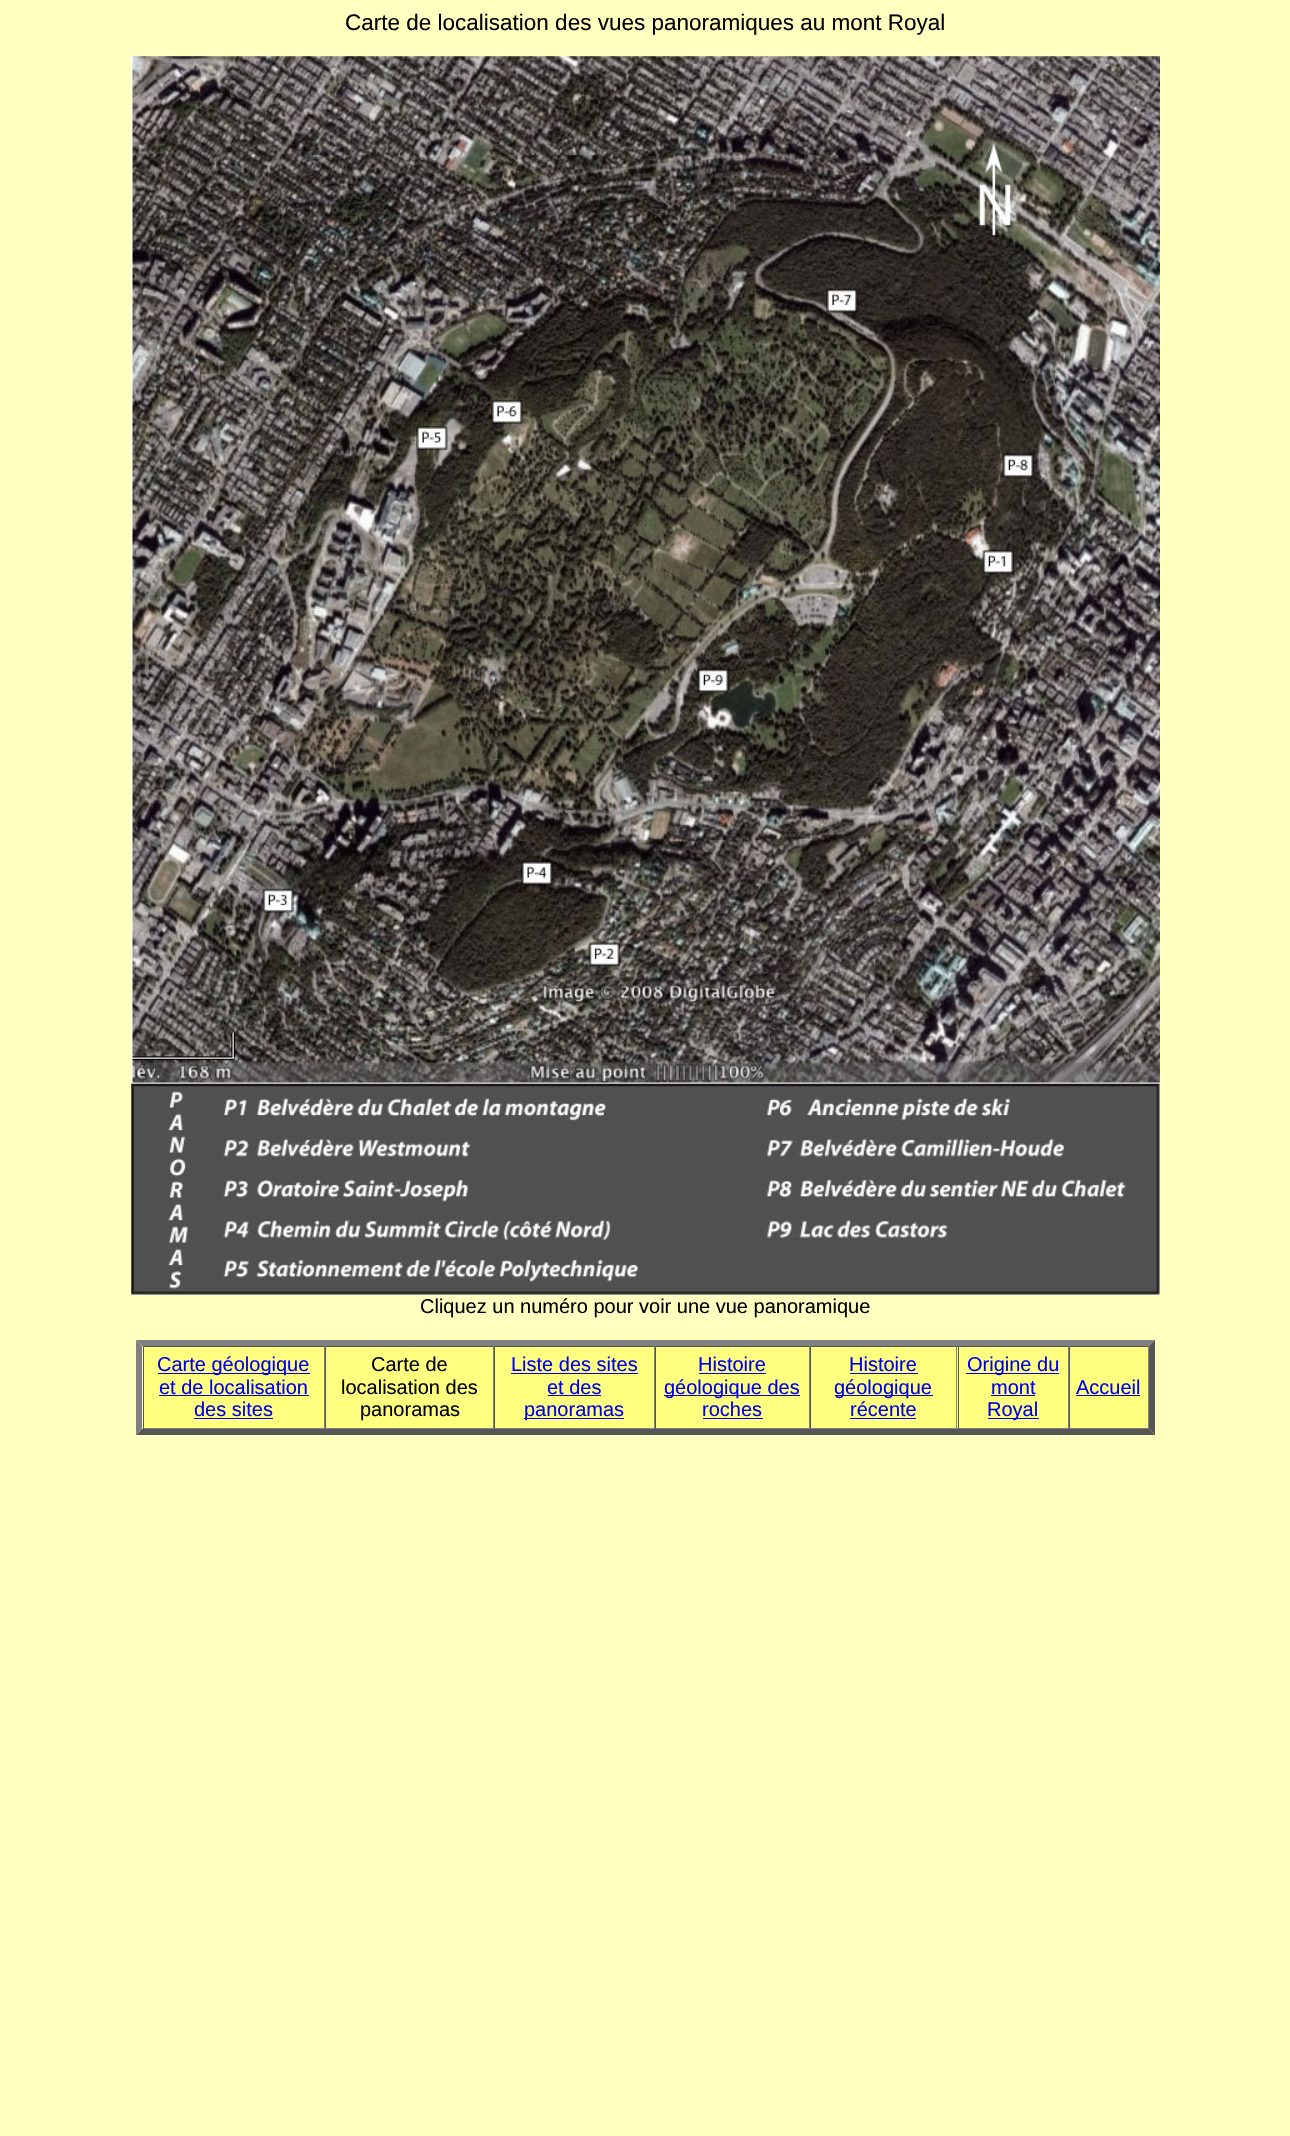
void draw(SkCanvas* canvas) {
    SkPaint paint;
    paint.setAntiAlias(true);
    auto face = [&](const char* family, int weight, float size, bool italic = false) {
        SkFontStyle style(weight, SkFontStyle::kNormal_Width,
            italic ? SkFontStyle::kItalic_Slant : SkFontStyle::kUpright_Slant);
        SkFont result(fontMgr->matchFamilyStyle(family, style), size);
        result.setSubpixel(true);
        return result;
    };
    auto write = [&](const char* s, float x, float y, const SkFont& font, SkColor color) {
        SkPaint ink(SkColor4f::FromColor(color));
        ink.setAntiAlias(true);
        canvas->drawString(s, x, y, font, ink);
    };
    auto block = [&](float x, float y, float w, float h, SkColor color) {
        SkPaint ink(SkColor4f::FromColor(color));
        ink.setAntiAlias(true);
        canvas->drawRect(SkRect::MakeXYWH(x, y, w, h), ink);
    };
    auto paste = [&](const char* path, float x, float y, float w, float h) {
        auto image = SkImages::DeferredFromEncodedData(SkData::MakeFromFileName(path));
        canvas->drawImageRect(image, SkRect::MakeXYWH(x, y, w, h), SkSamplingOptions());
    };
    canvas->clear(SkColorSetRGB(255, 255, 192));
    auto kFont1 = face("Liberation Sans", 400, 22.5f);
    write("Carte de localisation des vues panoramiques au mont Royal", 345, 30, kFont1, SK_ColorBLACK);
    paste("pic1.png", 131, 56, 1029, 1239);
    auto kFont2 = face("Liberation Sans", 400, 20);
    write("Cliquez un numéro pour voir une vue panoramique", 420, 1313, kFont2, SK_ColorBLACK);
    paint.setColor(SkColorSetRGB(128, 128, 128));
    canvas->drawPath(SkPathBuilder().moveTo(136, 1340).lineTo(1155, 1340).lineTo(1149, 1346).lineTo(142, 1346).close().detach(), paint);
    paint.setColor(SkColorSetRGB(85, 85, 85));
    canvas->drawPath(SkPathBuilder().moveTo(1155, 1340).lineTo(1155, 1435).lineTo(1149, 1429).lineTo(1149, 1346).close().detach(), paint);
    canvas->drawPath(SkPathBuilder().moveTo(1155, 1435).lineTo(136, 1435).lineTo(142, 1429).lineTo(1149, 1429).close().detach(), paint);
    paint.setColor(SkColorSetRGB(128, 128, 128));
    canvas->drawPath(SkPathBuilder().moveTo(136, 1435).lineTo(136, 1340).lineTo(142, 1346).lineTo(142, 1429).close().detach(), paint);
    block(144, 1347, 180, 81, SkColorSetRGB(255, 255, 128));
    block(143, 1346, 1006, 1, SkColorSetRGB(85, 85, 85));
    block(324, 1346, 1, 83, SkColorSetRGB(128, 128, 128));
    block(143, 1428, 182, 1, SkColorSetRGB(128, 128, 128));
    block(143, 1346, 1, 83, SkColorSetRGB(85, 85, 85));
    block(158, 1373, 152, 1, SkColorSetRGB(0, 0, 238));
    write("Carte géologique", 157, 1371, kFont2, SkColorSetRGB(0, 0, 238));
    write("et de localisation", 159, 1394, kFont2, SkColorSetRGB(0, 0, 238));
    block(159, 1395, 150, 1, SkColorSetRGB(0, 0, 238));
    write("des sites", 194, 1416, kFont2, SkColorSetRGB(0, 0, 238));
    block(194, 1418, 79, 1, SkColorSetRGB(0, 0, 238));
    block(326, 1347, 167, 81, SkColorSetRGB(255, 255, 128));
    block(493, 1346, 1, 83, SkColorSetRGB(128, 128, 128));
    block(325, 1428, 169, 1, SkColorSetRGB(128, 128, 128));
    block(325, 1346, 1, 83, SkColorSetRGB(85, 85, 85));
    write("Carte de", 371, 1371, kFont2, SK_ColorBLACK);
    write("localisation des", 341, 1394, kFont2, SK_ColorBLACK);
    write("panoramas", 360, 1416, kFont2, SK_ColorBLACK);
    block(495, 1347, 159, 81, SkColorSetRGB(255, 255, 128));
    block(654, 1346, 1, 83, SkColorSetRGB(128, 128, 128));
    block(494, 1428, 161, 1, SkColorSetRGB(128, 128, 128));
    block(494, 1346, 1, 83, SkColorSetRGB(85, 85, 85));
    write("Liste des sites", 511, 1371, kFont2, SkColorSetRGB(0, 0, 238));
    block(511, 1373, 127, 1, SkColorSetRGB(0, 0, 238));
    write("et des", 547, 1394, kFont2, SkColorSetRGB(0, 0, 238));
    block(548, 1395, 53, 1, SkColorSetRGB(0, 0, 238));
    block(524, 1418, 100, 1, SkColorSetRGB(0, 0, 238));
    write("panoramas", 524, 1416, kFont2, SkColorSetRGB(0, 0, 238));
    block(656, 1347, 153, 81, SkColorSetRGB(255, 255, 128));
    block(809, 1346, 1, 83, SkColorSetRGB(128, 128, 128));
    block(655, 1428, 155, 1, SkColorSetRGB(128, 128, 128));
    block(655, 1346, 1, 83, SkColorSetRGB(85, 85, 85));
    write("Histoire", 698, 1371, kFont2, SkColorSetRGB(0, 0, 238));
    block(699, 1373, 67, 1, SkColorSetRGB(0, 0, 238));
    block(664, 1395, 136, 1, SkColorSetRGB(0, 0, 238));
    write("géologique des", 664, 1394, kFont2, SkColorSetRGB(0, 0, 238));
    write("roches", 702, 1416, kFont2, SkColorSetRGB(0, 0, 238));
    block(703, 1418, 60, 1, SkColorSetRGB(0, 0, 238));
    block(811, 1347, 147, 81, SkColorSetRGB(255, 255, 128));
    block(956, 1346, 1, 83, SkColorSetRGB(128, 128, 128));
    block(810, 1428, 148, 1, SkColorSetRGB(128, 128, 128));
    block(810, 1346, 1, 83, SkColorSetRGB(85, 85, 85));
    write("Histoire", 849, 1371, kFont2, SkColorSetRGB(0, 0, 238));
    block(850, 1373, 68, 1, SkColorSetRGB(0, 0, 238));
    block(835, 1395, 98, 1, SkColorSetRGB(0, 0, 238));
    write("géologique", 834, 1394, kFont2, SkColorSetRGB(0, 0, 238));
    write("récente", 850, 1416, kFont2, SkColorSetRGB(0, 0, 238));
    block(850, 1418, 66, 1, SkColorSetRGB(0, 0, 238));
    block(959, 1347, 109, 81, SkColorSetRGB(255, 255, 128));
    block(1068, 1346, 1, 83, SkColorSetRGB(128, 128, 128));
    block(958, 1428, 111, 1, SkColorSetRGB(128, 128, 128));
    block(958, 1346, 1, 83, SkColorSetRGB(85, 85, 85));
    block(966, 1373, 93, 1, SkColorSetRGB(0, 0, 238));
    write("Origine du", 967, 1371, kFont2, SkColorSetRGB(0, 0, 238));
    write("mont", 991, 1394, kFont2, SkColorSetRGB(0, 0, 238));
    block(991, 1395, 44, 1, SkColorSetRGB(0, 0, 238));
    block(988, 1418, 51, 1, SkColorSetRGB(0, 0, 238));
    write("Royal", 987, 1416, kFont2, SkColorSetRGB(0, 0, 238));
    block(1070, 1347, 78, 81, SkColorSetRGB(255, 255, 128));
    block(1148, 1346, 1, 83, SkColorSetRGB(128, 128, 128));
    block(1069, 1428, 80, 1, SkColorSetRGB(128, 128, 128));
    block(1069, 1346, 1, 83, SkColorSetRGB(85, 85, 85));
    write("Accueil", 1076, 1394, kFont2, SkColorSetRGB(0, 0, 238));
    block(1076, 1395, 64, 1, SkColorSetRGB(0, 0, 238));
}
